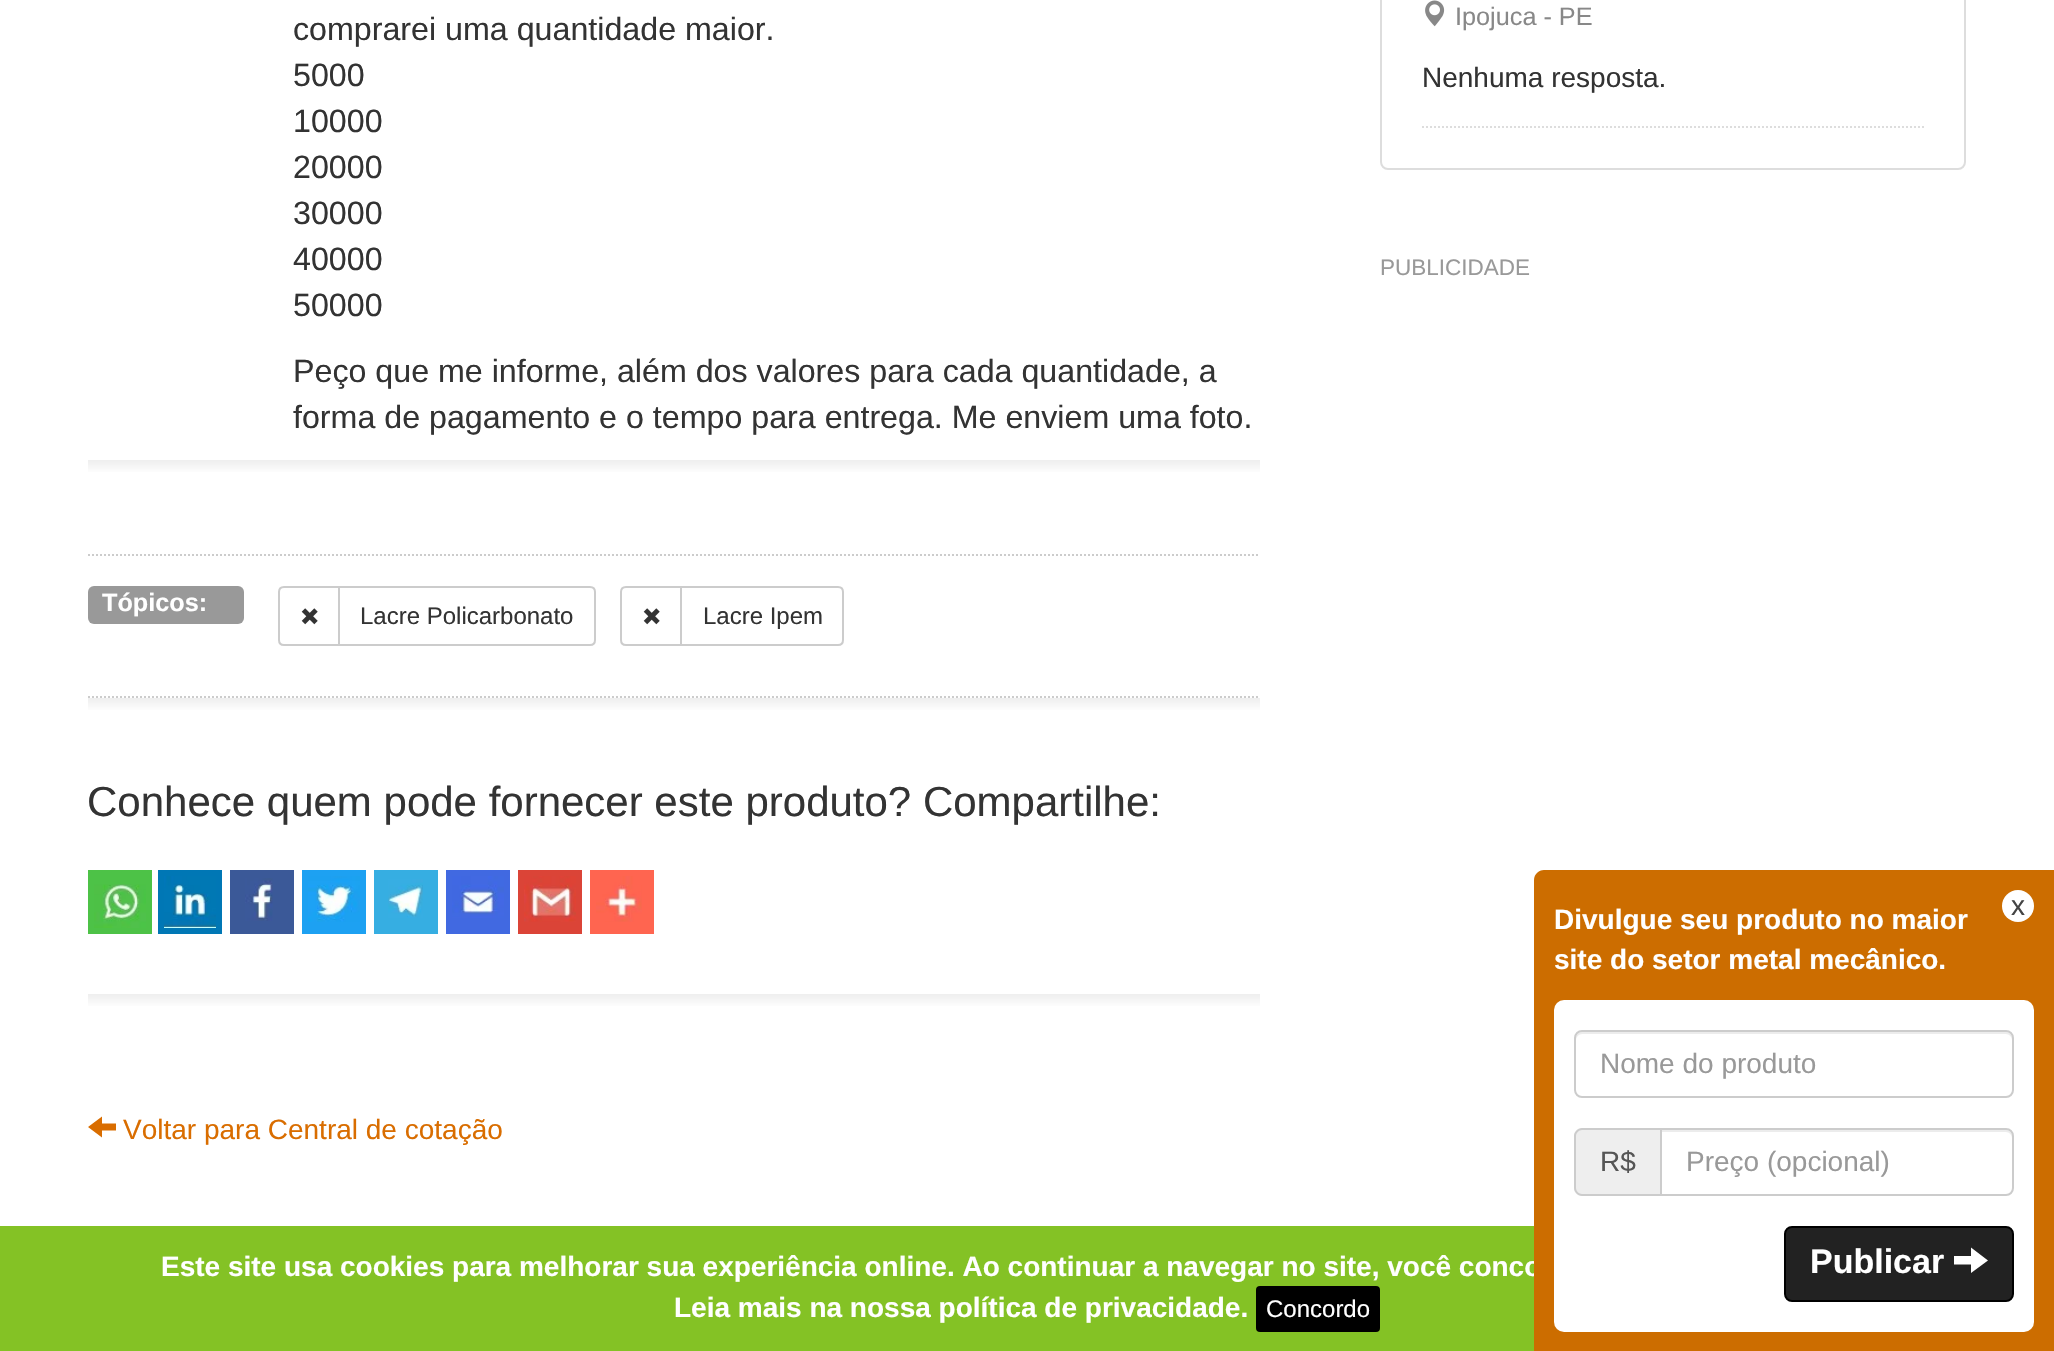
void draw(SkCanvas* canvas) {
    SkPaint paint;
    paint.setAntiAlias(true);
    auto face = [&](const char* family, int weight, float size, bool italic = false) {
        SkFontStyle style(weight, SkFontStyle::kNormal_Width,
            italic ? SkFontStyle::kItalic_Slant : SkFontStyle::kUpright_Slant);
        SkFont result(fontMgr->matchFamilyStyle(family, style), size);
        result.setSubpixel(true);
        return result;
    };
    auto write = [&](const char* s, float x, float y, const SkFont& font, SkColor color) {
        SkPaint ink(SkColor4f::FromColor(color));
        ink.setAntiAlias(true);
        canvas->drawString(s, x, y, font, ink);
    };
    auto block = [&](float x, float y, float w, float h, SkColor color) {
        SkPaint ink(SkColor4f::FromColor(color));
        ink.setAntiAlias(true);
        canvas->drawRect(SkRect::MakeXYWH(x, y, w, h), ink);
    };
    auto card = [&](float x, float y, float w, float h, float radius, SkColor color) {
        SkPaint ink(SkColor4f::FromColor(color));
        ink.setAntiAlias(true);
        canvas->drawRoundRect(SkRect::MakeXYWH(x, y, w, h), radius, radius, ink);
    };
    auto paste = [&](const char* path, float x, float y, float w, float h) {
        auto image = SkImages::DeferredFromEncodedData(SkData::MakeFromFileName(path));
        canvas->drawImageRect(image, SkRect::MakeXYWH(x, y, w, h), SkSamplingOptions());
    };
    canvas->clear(SK_ColorWHITE);
    auto kFont1 = face("Liberation Sans", 400, 32.2f);
    write("comprarei uma quantidade maior.", 293, 40, kFont1, SkColorSetRGB(51, 51, 51));
    write("5000", 293, 86, kFont1, SkColorSetRGB(51, 51, 51));
    write("10000", 293, 132, kFont1, SkColorSetRGB(51, 51, 51));
    write("20000", 293, 178, kFont1, SkColorSetRGB(51, 51, 51));
    write("30000", 293, 224, kFont1, SkColorSetRGB(51, 51, 51));
    write("40000", 293, 270, kFont1, SkColorSetRGB(51, 51, 51));
    write("50000", 293, 316, kFont1, SkColorSetRGB(51, 51, 51));
    write("Peço que me informe, além dos valores para cada quantidade, a", 293, 382, kFont1, SkColorSetRGB(51, 51, 51));
    write("forma de pagamento e o tempo para entrega. Me enviem uma foto.", 293, 428, kFont1, SkColorSetRGB(51, 51, 51));
    {
        const SkColor colors[] = {SK_ColorWHITE, SkColorSetRGB(238, 238, 238)};
        const float stops[] = {0, 1};
        const SkPoint ends[] = {{674, 474}, {674, 460}};
        paint.setShader(SkGradientShader::MakeLinear(ends, colors, stops, 2, SkTileMode::kClamp));
        paint.setAlpha(255);
    }
    canvas->drawRect(SkRect::MakeXYWH(88, 460, 1172, 12), paint);
    paint.setStyle(SkPaint::kStroke_Style);
    paint.setStrokeWidth(2);
    paint.setShader(nullptr);
    paint.setColor(SkColorSetRGB(204, 204, 204));
    paint.setPathEffect(SkDashPathEffect::Make({{2, 2}}, 0));
    canvas->drawPath(SkPathBuilder().moveTo(88, 555).lineTo(1260, 555).detach(), paint);
    paint.setPathEffect(nullptr);
    paint.setPathEffect(SkDashPathEffect::Make({{2, 2}}, 0));
    canvas->drawPath(SkPathBuilder().moveTo(88, 697).lineTo(1260, 697).detach(), paint);
    paint.setPathEffect(nullptr);
    card(88, 586, 156, 38, 6, SkColorSetRGB(153, 153, 153));
    auto kFont2 = face("Liberation Sans", 700, 25.25f);
    write("Tópicos:", 102, 611, kFont2, SK_ColorWHITE);
    canvas->drawPath(SkPathBuilder().moveTo(284, 587).lineTo(339, 587).lineTo(339, 645).lineTo(284, 645).cubicTo(281, 645, 279, 643, 279, 640).lineTo(279, 592).cubicTo(279, 589, 281, 587, 284, 587).close().detach(), paint);
    paste("pic1.png", 301, 608, 17, 17);
    paint.setStyle(SkPaint::kFill_Style);
    paint.setColor(SK_ColorWHITE);
    canvas->drawPath(SkPathBuilder().moveTo(339, 587).lineTo(590, 587).cubicTo(593, 587, 595, 589, 595, 592).lineTo(595, 640).cubicTo(595, 643, 593, 645, 590, 645).lineTo(339, 645).close().detach(), paint);
    paint.setStyle(SkPaint::kStroke_Style);
    paint.setColor(SkColorSetRGB(204, 204, 204));
    canvas->drawPath(SkPathBuilder().moveTo(339, 587).lineTo(590, 587).cubicTo(593, 587, 595, 589, 595, 592).lineTo(595, 640).cubicTo(595, 643, 593, 645, 590, 645).lineTo(339, 645).close().detach(), paint);
    auto kFont3 = face("Liberation Sans", 400, 24);
    write("Lacre Policarbonato", 360, 624, kFont3, SkColorSetRGB(51, 51, 51));
    canvas->drawPath(SkPathBuilder().moveTo(626, 587).lineTo(681, 587).lineTo(681, 645).lineTo(626, 645).cubicTo(623, 645, 621, 643, 621, 640).lineTo(621, 592).cubicTo(621, 589, 623, 587, 626, 587).close().detach(), paint);
    paste("pic1.png", 643, 608, 17, 17);
    paint.setStyle(SkPaint::kFill_Style);
    paint.setColor(SK_ColorWHITE);
    canvas->drawPath(SkPathBuilder().moveTo(681, 587).lineTo(838, 587).cubicTo(841, 587, 843, 589, 843, 592).lineTo(843, 640).cubicTo(843, 643, 841, 645, 838, 645).lineTo(681, 645).close().detach(), paint);
    paint.setStyle(SkPaint::kStroke_Style);
    paint.setColor(SkColorSetRGB(204, 204, 204));
    canvas->drawPath(SkPathBuilder().moveTo(681, 587).lineTo(838, 587).cubicTo(841, 587, 843, 589, 843, 592).lineTo(843, 640).cubicTo(843, 643, 841, 645, 838, 645).lineTo(681, 645).close().detach(), paint);
    write("Lacre Ipem", 703, 624, kFont3, SkColorSetRGB(51, 51, 51));
    paint.setStyle(SkPaint::kFill_Style);
    {
        const SkColor colors[] = {SK_ColorWHITE, SkColorSetRGB(238, 238, 238)};
        const float stops[] = {0, 1};
        const SkPoint ends[] = {{674, 712}, {674, 698}};
        paint.setShader(SkGradientShader::MakeLinear(ends, colors, stops, 2, SkTileMode::kClamp));
        paint.setAlpha(255);
    }
    canvas->drawRect(SkRect::MakeXYWH(88, 698, 1172, 12), paint);
    auto kFont4 = face("Liberation Sans", 400, 42);
    write("Conhece quem pode fornecer este produto? Compartilhe:", 87, 816, kFont4, SkColorSetRGB(51, 51, 51));
    block(88, 870, 64, 64, SkColorSetRGB(77, 194, 71));
    block(158, 870, 64, 64, SkColorSetRGB(0, 119, 181));
    block(230, 870, 64, 64, SkColorSetRGB(59, 89, 152));
    block(302, 870, 64, 64, SkColorSetRGB(29, 161, 242));
    block(374, 870, 64, 64, SkColorSetRGB(54, 174, 226));
    block(446, 870, 64, 64, SkColorSetRGB(65, 105, 225));
    block(518, 870, 64, 64, SkColorSetRGB(219, 68, 55));
    block(590, 870, 64, 64, SkColorSetRGB(255, 101, 80));
    paste("pic2.png", 94, 884, 52, 44);
    paste("pic3.png", 164, 876, 52, 52);
    paste("pic4.png", 245, 878, 28, 43);
    paste("pic5.png", 308, 876, 52, 46);
    paste("pic6.png", 388, 879, 35, 39);
    paste("pic7.png", 452, 876, 52, 42);
    paste("pic8.png", 524, 876, 52, 46);
    paste("pic9.png", 596, 876, 46, 46);
    {
        const SkColor colors[] = {SK_ColorWHITE, SkColorSetRGB(238, 238, 238)};
        const float stops[] = {0, 1};
        const SkPoint ends[] = {{674, 1008}, {674, 994}};
        paint.setShader(SkGradientShader::MakeLinear(ends, colors, stops, 2, SkTileMode::kClamp));
        paint.setAlpha(255);
    }
    canvas->drawRect(SkRect::MakeXYWH(88, 994, 1172, 12), paint);
    paint.setShader(nullptr);
    paint.setColor(SkColorSetRGB(217, 109, 0));
    canvas->drawPath(SkPathBuilder().moveTo(88, 1127).lineTo(102, 1116.5f).lineTo(102, 1123.5f).lineTo(116, 1123.5f).lineTo(116, 1130.5f).lineTo(102, 1130.5f).lineTo(102, 1137.5f).close().detach(), paint);
    auto kFont5 = face("Liberation Sans", 400, 28);
    write("Voltar para Central de cotação", 123, 1139, kFont5, SkColorSetRGB(217, 109, 0));
    paint.setStyle(SkPaint::kStroke_Style);
    paint.setColor(SkColorSetRGB(221, 221, 221));
    canvas->drawRoundRect(SkRect::MakeXYWH(1381, -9, 584, 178), 7, 7, paint);
    paint.setPathEffect(SkDashPathEffect::Make({{2, 2}}, 0));
    canvas->drawPath(SkPathBuilder().moveTo(1422, 127).lineTo(1924, 127).detach(), paint);
    paint.setPathEffect(nullptr);
    paste("pic10.png", 1425, 0, 20, 27);
    auto kFont6 = face("Liberation Sans", 400, 25.25f);
    write("Ipojuca - PE", 1455, 25, kFont6, SkColorSetRGB(136, 136, 136));
    write("Nenhuma resposta.", 1422, 87, kFont5, SkColorSetRGB(51, 51, 51));
    auto kFont7 = face("Liberation Sans", 400, 22.5f);
    write("PUBLICIDADE", 1380, 275, kFont7, SkColorSetRGB(153, 153, 153));
    block(0, 1226, 1534, 125, SkColorSetRGB(132, 194, 37));
    auto kFont8 = face("Liberation Sans", 700, 28);
    write("Este site usa cookies para melhorar sua experiência online. Ao continuar a navegar no site, você conco", 161, 1276, kFont8, SK_ColorWHITE);
    paint.setStyle(SkPaint::kFill_Style);
    paint.setColor(SkColorSetRGB(204, 109, 0));
    canvas->drawPath(SkPathBuilder().moveTo(1544, 870).lineTo(2054, 870).lineTo(2054, 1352).lineTo(1534, 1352).lineTo(1534, 880).cubicTo(1534, 874.5f, 1538.5f, 870, 1544, 870).close().detach(), paint);
    write("Divulgue seu produto no maior", 1554, 929, kFont8, SK_ColorWHITE);
    write("site do setor metal mecânico.", 1554, 969, kFont8, SK_ColorWHITE);
    paint.setColor(SK_ColorWHITE);
    canvas->drawCircle(2018, 906, 16, paint);
    write("x", 2011, 915, kFont5, SkColorSetRGB(68, 68, 68));
    card(1554, 1000, 480, 332, 10, SK_ColorWHITE);
    paint.setColor(SkColorSetRGB(236, 236, 236));
    canvas->drawPath(SkPathBuilder().moveTo(1582, 1034).lineTo(2006, 1034).cubicTo(2009, 1034, 2012, 1037, 2012, 1040).lineTo(2012, 1038).cubicTo(2012, 1035, 2009, 1032, 2006, 1032).lineTo(1582, 1032).cubicTo(1579, 1032, 1576, 1035, 1576, 1038).lineTo(1576, 1040).cubicTo(1576, 1037, 1579, 1034, 1582, 1034).close().detach(), paint);
    paint.setStyle(SkPaint::kStroke_Style);
    paint.setColor(SkColorSetRGB(204, 204, 204));
    canvas->drawRoundRect(SkRect::MakeXYWH(1575, 1031, 438, 66), 7, 7, paint);
    write("Nome do produto", 1600, 1073, kFont5, SkColorSetRGB(153, 153, 153));
    paint.setStyle(SkPaint::kFill_Style);
    paint.setColor(SkColorSetRGB(238, 238, 238));
    canvas->drawPath(SkPathBuilder().moveTo(1582, 1128).lineTo(1660, 1128).lineTo(1660, 1196).lineTo(1582, 1196).cubicTo(1577.5f, 1196, 1574, 1192.5f, 1574, 1188).lineTo(1574, 1136).cubicTo(1574, 1131.5f, 1577.5f, 1128, 1582, 1128).close().detach(), paint);
    paint.setColor(SkColorSetRGB(204, 204, 204));
    canvas->drawPath(SkPathBuilder(SkPathFillType::kEvenOdd).moveTo(1582, 1128).lineTo(1660, 1128).lineTo(1660, 1196).lineTo(1582, 1196).cubicTo(1578, 1196, 1574, 1192, 1574, 1188).lineTo(1574, 1136).cubicTo(1574, 1132, 1578, 1128, 1582, 1128).close().moveTo(1582, 1130).lineTo(1660, 1130).lineTo(1660, 1194).lineTo(1582, 1194).cubicTo(1579, 1194, 1576, 1191, 1576, 1188).lineTo(1576, 1136).cubicTo(1576, 1133, 1579, 1130, 1582, 1130).close().detach(), paint);
    write("R$", 1600, 1171, kFont5, SkColorSetRGB(85, 85, 85));
    paint.setColor(SkColorSetRGB(236, 236, 236));
    canvas->drawPath(SkPathBuilder().moveTo(1662, 1132).lineTo(2006, 1132).cubicTo(2009, 1132, 2012, 1135, 2012, 1138).lineTo(2012, 1136).cubicTo(2012, 1133, 2009, 1130, 2006, 1130).lineTo(1662, 1130).close().detach(), paint);
    paint.setStyle(SkPaint::kStroke_Style);
    paint.setColor(SkColorSetRGB(204, 204, 204));
    canvas->drawPath(SkPathBuilder().moveTo(1661, 1129).lineTo(2006, 1129).cubicTo(2010, 1129, 2013, 1132, 2013, 1136).lineTo(2013, 1188).cubicTo(2013, 1192, 2010, 1195, 2006, 1195).lineTo(1661, 1195).close().detach(), paint);
    write("Preço (opcional)", 1686, 1171, kFont5, SkColorSetRGB(153, 153, 153));
    paint.setStyle(SkPaint::kFill_Style);
    paint.setColor(SkColorSetRGB(34, 34, 34));
    canvas->drawRoundRect(SkRect::MakeXYWH(1785, 1227, 228, 74), 7, 7, paint);
    paint.setStyle(SkPaint::kStroke_Style);
    paint.setColor(SK_ColorBLACK);
    canvas->drawRoundRect(SkRect::MakeXYWH(1785, 1227, 228, 74), 7, 7, paint);
    auto kFont9 = face("Liberation Sans", 700, 34);
    write("Publicar", 1810, 1273, kFont9, SK_ColorWHITE);
    paint.setStyle(SkPaint::kFill_Style);
    paint.setColor(SK_ColorWHITE);
    canvas->drawPath(SkPathBuilder().moveTo(1954, 1264.5f).lineTo(1954, 1256).lineTo(1971, 1256).lineTo(1971, 1247.5f).lineTo(1988, 1260.5f).lineTo(1971, 1273).lineTo(1971, 1264.5f).close().detach(), paint);
    write("Leia mais na nossa política de privacidade.", 674, 1317, kFont8, SK_ColorWHITE);
    card(1256, 1286, 124, 46, 4, SK_ColorBLACK);
    write("Concordo", 1266, 1317, kFont3, SK_ColorWHITE);
}
